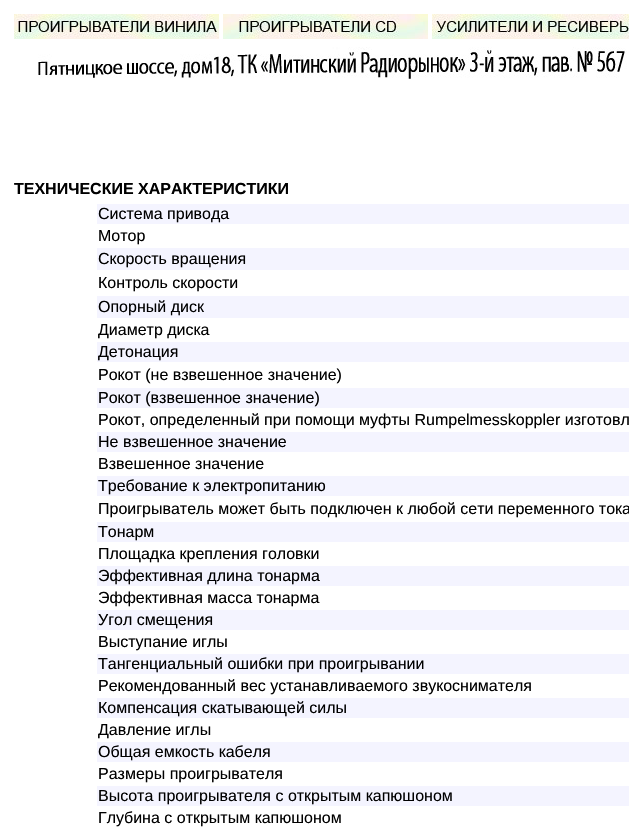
void draw(SkCanvas* canvas) {
    SkPaint paint;
    paint.setAntiAlias(true);
    auto face = [&](const char* family, int weight, float size, bool italic = false) {
        SkFontStyle style(weight, SkFontStyle::kNormal_Width,
            italic ? SkFontStyle::kItalic_Slant : SkFontStyle::kUpright_Slant);
        SkFont result(fontMgr->matchFamilyStyle(family, style), size);
        result.setSubpixel(true);
        return result;
    };
    auto write = [&](const char* s, float x, float y, const SkFont& font, SkColor color) {
        SkPaint ink(SkColor4f::FromColor(color));
        ink.setAntiAlias(true);
        canvas->drawString(s, x, y, font, ink);
    };
    auto block = [&](float x, float y, float w, float h, SkColor color) {
        SkPaint ink(SkColor4f::FromColor(color));
        ink.setAntiAlias(true);
        canvas->drawRect(SkRect::MakeXYWH(x, y, w, h), ink);
    };
    auto paste = [&](const char* path, float x, float y, float w, float h) {
        auto image = SkImages::DeferredFromEncodedData(SkData::MakeFromFileName(path));
        canvas->drawImageRect(image, SkRect::MakeXYWH(x, y, w, h), SkSamplingOptions());
    };
    canvas->clear(SK_ColorWHITE);
    paste("pic1.png", 14, 14, 205, 25);
    paste("pic2.png", 223, 14, 205, 25);
    paste("pic3.png", 432, 14, 197, 25);
    paste("pic4.png", 38, 47, 589, 32);
    auto kFont1 = face("Liberation Sans", 700, 16);
    write("ТЕХНИЧЕСКИЕ ХАРАКТЕРИСТИКИ", 14, 194, kFont1, SK_ColorBLACK);
    block(97, 204, 532, 20, SkColorSetRGB(244, 244, 255));
    auto kFont2 = face("Liberation Sans", 400, 16);
    write("Система привода", 98, 219, kFont2, SK_ColorBLACK);
    write("Мотор", 98, 241, kFont2, SK_ColorBLACK);
    block(97, 248, 532, 22, SkColorSetRGB(244, 244, 255));
    write("Скорость вращения", 98, 264, kFont2, SK_ColorBLACK);
    write("Контроль скорости", 98, 288, kFont2, SK_ColorBLACK);
    block(97, 296, 532, 22, SkColorSetRGB(244, 244, 255));
    write("Опорный диск", 98, 312, kFont2, SK_ColorBLACK);
    write("Диаметр диска", 98, 335, kFont2, SK_ColorBLACK);
    block(97, 342, 532, 20, SkColorSetRGB(244, 244, 255));
    write("Детонация", 98, 357, kFont2, SK_ColorBLACK);
    write("Рокот (не взвешенное значение)", 98, 380, kFont2, SK_ColorBLACK);
    block(97, 388, 532, 20, SkColorSetRGB(244, 244, 255));
    write("Рокот (взвешенное значение)", 98, 403, kFont2, SK_ColorBLACK);
    write("Рокот, определенный при помощи муфты Rumpelmesskoppler изготовл", 98, 425, kFont2, SK_ColorBLACK);
    block(97, 432, 532, 20, SkColorSetRGB(244, 244, 255));
    write("Не взвешенное значение", 98, 447, kFont2, SK_ColorBLACK);
    write("Взвешенное значение", 98, 469, kFont2, SK_ColorBLACK);
    block(97, 476, 532, 20, SkColorSetRGB(244, 244, 255));
    write("Требование к электропитанию", 98, 491, kFont2, SK_ColorBLACK);
    write("Проигрыватель может быть подключен к любой сети переменного тока", 98, 514, kFont2, SK_ColorBLACK);
    block(97, 522, 532, 20, SkColorSetRGB(244, 244, 255));
    write("Тонарм", 98, 537, kFont2, SK_ColorBLACK);
    write("Площадка крепления головки", 98, 559, kFont2, SK_ColorBLACK);
    block(97, 566, 532, 20, SkColorSetRGB(244, 244, 255));
    write("Эффективная длина тонарма", 98, 581, kFont2, SK_ColorBLACK);
    write("Эффективная масса тонарма", 98, 603, kFont2, SK_ColorBLACK);
    block(97, 610, 532, 20, SkColorSetRGB(244, 244, 255));
    write("Угол смещения", 98, 625, kFont2, SK_ColorBLACK);
    write("Выступание иглы", 98, 647, kFont2, SK_ColorBLACK);
    block(97, 654, 532, 20, SkColorSetRGB(244, 244, 255));
    write("Тангенциальный ошибки при проигрывании", 98, 669, kFont2, SK_ColorBLACK);
    write("Рекомендованный вес устанавливаемого звукоснимателя", 98, 691, kFont2, SK_ColorBLACK);
    block(97, 698, 532, 20, SkColorSetRGB(244, 244, 255));
    write("Компенсация скатывающей силы", 98, 713, kFont2, SK_ColorBLACK);
    write("Давление иглы", 98, 735, kFont2, SK_ColorBLACK);
    block(97, 742, 532, 20, SkColorSetRGB(244, 244, 255));
    write("Общая емкость кабеля", 98, 757, kFont2, SK_ColorBLACK);
    write("Размеры проигрывателя", 98, 779, kFont2, SK_ColorBLACK);
    block(97, 786, 532, 20, SkColorSetRGB(244, 244, 255));
    write("Высота проигрывателя с открытым капюшоном", 98, 801, kFont2, SK_ColorBLACK);
    write("Глубина с открытым капюшоном", 98, 823, kFont2, SK_ColorBLACK);
}
